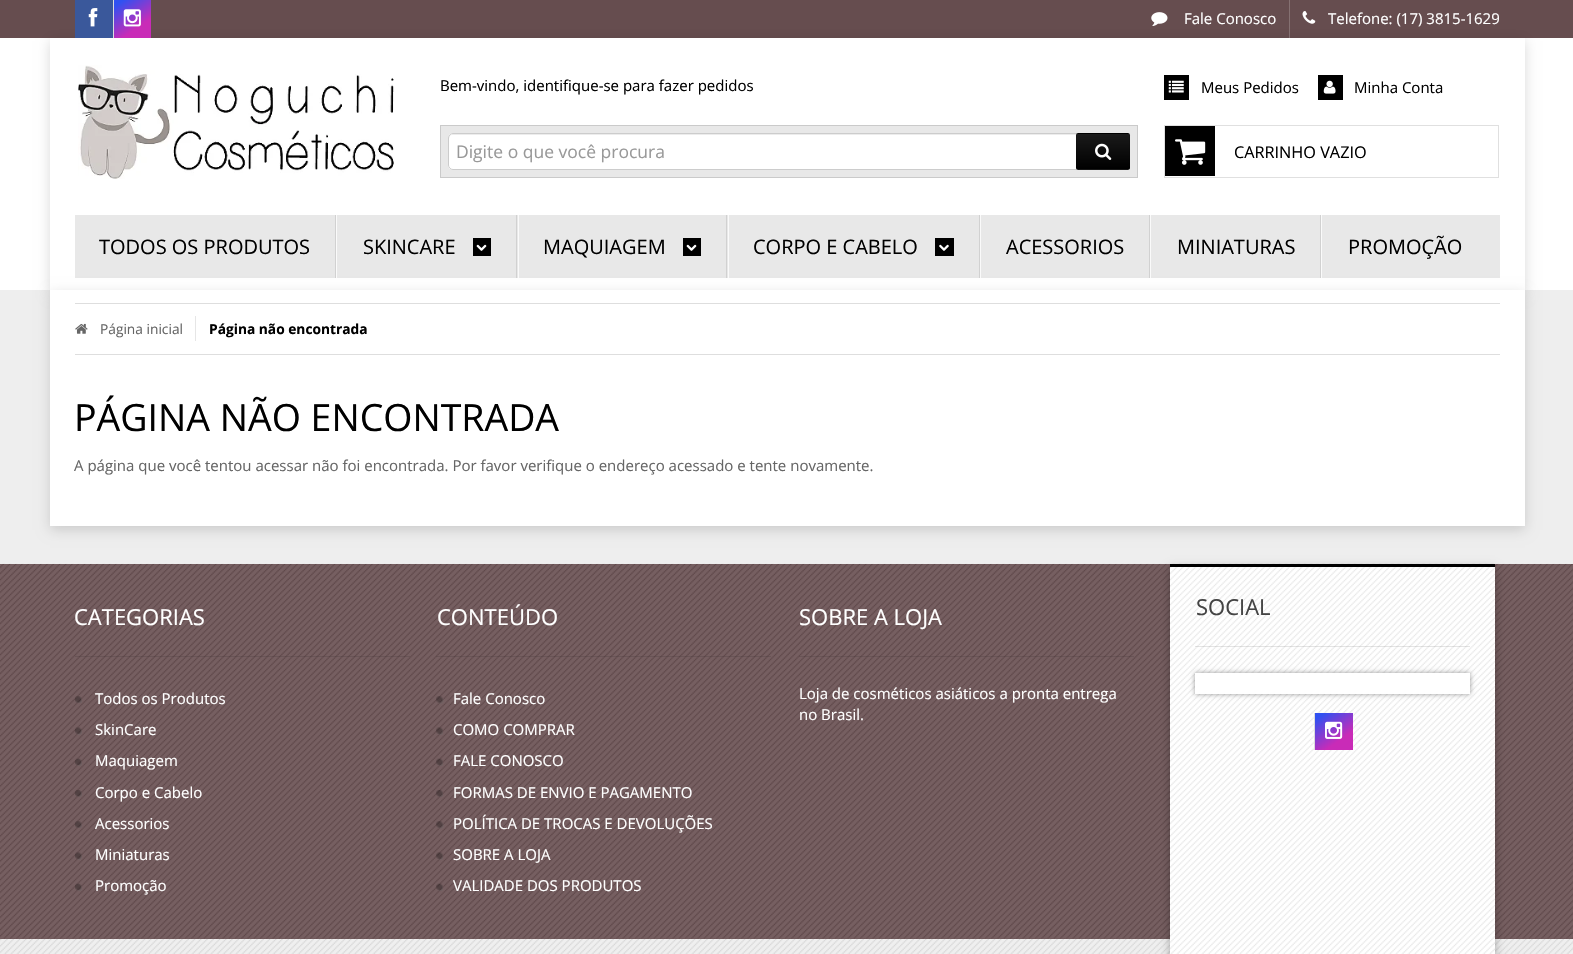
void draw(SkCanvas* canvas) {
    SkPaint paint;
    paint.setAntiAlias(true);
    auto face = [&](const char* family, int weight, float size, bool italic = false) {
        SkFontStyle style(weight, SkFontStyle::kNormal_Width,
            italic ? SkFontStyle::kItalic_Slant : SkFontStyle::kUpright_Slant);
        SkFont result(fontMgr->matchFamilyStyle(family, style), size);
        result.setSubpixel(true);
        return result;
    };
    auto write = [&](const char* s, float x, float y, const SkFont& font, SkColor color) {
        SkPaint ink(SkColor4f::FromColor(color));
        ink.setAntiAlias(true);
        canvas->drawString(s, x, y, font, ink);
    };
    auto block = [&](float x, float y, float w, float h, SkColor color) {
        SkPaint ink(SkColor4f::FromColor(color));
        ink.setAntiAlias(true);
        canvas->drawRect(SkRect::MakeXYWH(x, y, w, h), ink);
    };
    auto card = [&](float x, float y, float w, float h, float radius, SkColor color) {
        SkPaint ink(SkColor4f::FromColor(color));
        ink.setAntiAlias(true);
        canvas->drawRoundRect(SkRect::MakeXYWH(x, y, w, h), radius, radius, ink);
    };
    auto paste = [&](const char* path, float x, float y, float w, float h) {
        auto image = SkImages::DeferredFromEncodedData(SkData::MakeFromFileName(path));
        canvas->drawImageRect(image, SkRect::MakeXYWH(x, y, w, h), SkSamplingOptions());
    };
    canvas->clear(SkColorSetRGB(238, 238, 238));
    block(0, 0, 1573, 38, SkColorSetRGB(102, 77, 79));
    block(0, 38, 1573, 252, SK_ColorWHITE);
    canvas->save();
    canvas->clipPath(SkPathBuilder(SkPathFillType::kEvenOdd).moveTo(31, 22).lineTo(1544, 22).lineTo(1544, 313).lineTo(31, 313).close().moveTo(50, 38).lineTo(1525, 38).lineTo(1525, 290).lineTo(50, 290).close().detach(), true);
    paint.setColor(SkColorSetARGB(38, 0, 0, 0));
    paint.setMaskFilter(SkMaskFilter::MakeBlur(kNormal_SkBlurStyle, 6));
    canvas->drawRect(SkRect::MakeXYWH(50, 41, 1475, 253), paint);
    paint.setMaskFilter(nullptr);
    canvas->restore();
    block(75, 0, 38, 38, SkColorSetRGB(58, 88, 155));
    paste("pic1.png", 88, 8, 10, 19);
    block(113, 0, 1, 38, SkColorSetRGB(221, 221, 221));
    {
        const SkColor colors[] = {SkColorSetRGB(48, 81, 241), SkColorSetRGB(201, 43, 183)};
        const float stops[] = {0.1f, 0.7f};
        const SkPoint ends[] = {{118, -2.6f}, {147, 40}};
        paint.setShader(SkGradientShader::MakeLinear(ends, colors, stops, 2, SkTileMode::kClamp));
        paint.setAlpha(255);
    }
    canvas->drawRect(SkRect::MakeXYWH(114, 0, 37, 38), paint);
    paste("pic2.png", 123, 9, 18, 18);
    paste("pic3.png", 1151, 12, 17, 14);
    auto kFont1 = face("Open Sans", 400, 15);
    write("Fale Conosco", 1184, 24, kFont1, SK_ColorWHITE);
    block(1289, 0, 1, 38, SkColorSetARGB(51, 255, 255, 255));
    paste("pic4.png", 1302, 11, 14, 13);
    write("Telefone: (17) 3815-1629", 1328, 24, kFont1, SK_ColorWHITE);
    paste("pic5.png", 78, 65, 316, 114);
    write("Bem-vindo, identifique-se para fazer pedidos", 440, 91, kFont1, SK_ColorBLACK);
    block(1164, 75, 25, 25, SK_ColorBLACK);
    paste("pic6.png", 1168, 80, 16, 13);
    write("Meus Pedidos", 1201, 93, kFont1, SK_ColorBLACK);
    block(1318, 75, 25, 25, SK_ColorBLACK);
    paste("pic7.png", 1323, 80, 13, 14);
    write("Minha Conta", 1354, 93, kFont1, SK_ColorBLACK);
    paint.setShader(nullptr);
    paint.setColor(SkColorSetRGB(232, 232, 232));
    canvas->drawRect(SkRect::MakeXYWH(440.5f, 125.5f, 697, 52), paint);
    paint.setStyle(SkPaint::kStroke_Style);
    paint.setStrokeWidth(1);
    paint.setColor(SkColorSetRGB(202, 202, 202));
    canvas->drawRect(SkRect::MakeXYWH(440.5f, 125.5f, 697, 52), paint);
    card(448, 133, 658, 37, 5, SK_ColorWHITE);
    paint.setStyle(SkPaint::kFill_Style);
    paint.setColor(SkColorSetRGB(236, 236, 236));
    canvas->drawPath(SkPathBuilder().moveTo(452, 135).lineTo(1101, 135).cubicTo(1103, 135, 1105, 137, 1105, 139).cubicTo(1105, 136, 1104, 134, 1101, 134).lineTo(453, 134).lineTo(450, 135).lineTo(449, 136).lineTo(449, 139).cubicTo(449, 137, 450, 135, 452, 135).close().detach(), paint);
    paint.setStyle(SkPaint::kStroke_Style);
    paint.setColor(SkColorSetRGB(204, 204, 204));
    canvas->drawRoundRect(SkRect::MakeXYWH(448.5f, 133.5f, 657, 36), 4.5f, 4.5f, paint);
    auto kFont2 = face("Open Sans", 400, 17.5f);
    write("Digite o que você procura", 456, 158, kFont2, SkColorSetRGB(153, 153, 153));
    card(1076, 133, 54, 37, 2.5f, SK_ColorBLACK);
    paint.setStyle(SkPaint::kFill_Style);
    {
        const SkColor colors[] = {SkColorSetARGB(26, 255, 255, 255), SkColorSetARGB(26, 0, 0, 0)};
        const float stops[] = {0, 1};
        const SkPoint ends[] = {{1103, 99}, {1103, 134}};
        paint.setShader(SkGradientShader::MakeLinear(ends, colors, stops, 2, SkTileMode::kClamp));
        paint.setAlpha(255);
    }
    canvas->drawRect(SkRect::MakeXYWH(1076, 133, 54, 1), paint);
    {
        const SkColor colors[] = {SkColorSetARGB(26, 255, 255, 255), SkColorSetARGB(26, 0, 0, 0)};
        const float stops[] = {0, 1};
        const SkPoint ends[] = {{1103, 134}, {1103, 169}};
        paint.setShader(SkGradientShader::MakeLinear(ends, colors, stops, 2, SkTileMode::kClamp));
        paint.setAlpha(255);
    }
    canvas->drawRect(SkRect::MakeXYWH(1076, 134, 54, 35), paint);
    {
        const SkColor colors[] = {SkColorSetARGB(26, 255, 255, 255), SkColorSetARGB(26, 0, 0, 0)};
        const float stops[] = {0, 1};
        const SkPoint ends[] = {{1103, 169}, {1103, 204}};
        paint.setShader(SkGradientShader::MakeLinear(ends, colors, stops, 2, SkTileMode::kClamp));
        paint.setAlpha(255);
    }
    canvas->drawRect(SkRect::MakeXYWH(1076, 169, 54, 1), paint);
    paint.setStyle(SkPaint::kStroke_Style);
    paint.setShader(nullptr);
    paint.setColor(SkColorSetARGB(33, 0, 0, 0));
    canvas->drawRoundRect(SkRect::MakeXYWH(1076.5f, 133.5f, 53, 36), 2, 2, paint);
    paste("pic8.png", 1095, 143, 17, 17);
    paint.setColor(SkColorSetRGB(224, 224, 224));
    canvas->drawRect(SkRect::MakeXYWH(1164.5f, 125.5f, 334, 52), paint);
    block(1165, 126, 50, 50, SK_ColorBLACK);
    paste("pic9.png", 1175, 139, 31, 26);
    auto kFont3 = face("Open Sans", 400, 16.25f);
    write("CARRINHO VAZIO", 1234, 158, kFont3, SK_ColorBLACK);
    block(75, 215, 1425, 63, SkColorSetRGB(232, 232, 232));
    paint.setStyle(SkPaint::kFill_Style);
    paint.setColor(SkColorSetARGB(38, 0, 0, 0));
    paint.setMaskFilter(SkMaskFilter::MakeBlur(kNormal_SkBlurStyle, 6));
    canvas->drawRect(SkRect::MakeXYWH(50, 294, 1475, 236), paint);
    paint.setMaskFilter(nullptr);
    block(335, 215, 1, 63, SkColorSetRGB(209, 209, 209));
    auto kFont4 = face("Open Sans", 400, 20);
    write("TODOS OS PRODUTOS", 99, 254, kFont4, SK_ColorBLACK);
    block(516, 215, 1, 63, SkColorSetRGB(209, 209, 209));
    block(336, 215, 1, 63, SkColorSetRGB(250, 250, 250));
    write("SKINCARE", 363, 254, kFont4, SK_ColorBLACK);
    block(473, 238, 18, 18, SK_ColorBLACK);
    paste("pic10.png", 476, 244, 11, 7);
    block(726, 215, 1, 63, SkColorSetRGB(209, 209, 209));
    block(518, 215, 1, 63, SkColorSetRGB(250, 250, 250));
    write("MAQUIAGEM", 543, 254, kFont4, SK_ColorBLACK);
    block(683, 238, 18, 18, SK_ColorBLACK);
    paste("pic10.png", 686, 244, 11, 7);
    block(979, 215, 1, 63, SkColorSetRGB(209, 209, 209));
    block(728, 215, 1, 63, SkColorSetRGB(250, 250, 250));
    write("CORPO E CABELO", 753, 254, kFont4, SK_ColorBLACK);
    block(935, 238, 19, 18, SK_ColorBLACK);
    paste("pic11.png", 939, 244, 10, 7);
    block(1149, 215, 1, 63, SkColorSetRGB(209, 209, 209));
    block(980, 215, 1, 63, SkColorSetRGB(250, 250, 250));
    write("ACESSORIOS", 1006, 254, kFont4, SK_ColorBLACK);
    block(1320, 215, 1, 63, SkColorSetRGB(209, 209, 209));
    block(1150, 215, 1, 63, SkColorSetRGB(250, 250, 250));
    write("MINIATURAS", 1177, 254, kFont4, SK_ColorBLACK);
    block(1321, 215, 1, 63, SkColorSetRGB(250, 250, 250));
    write("PROMOÇÃO", 1348, 254, kFont4, SK_ColorBLACK);
    block(50, 290, 1475, 236, SK_ColorWHITE);
    block(75, 303, 1425, 1, SkColorSetRGB(222, 222, 222));
    block(75, 354, 1425, 1, SkColorSetRGB(222, 222, 222));
    paste("pic12.png", 75, 323, 13, 11);
    auto kFont5 = face("Open Sans", 400, 13.75f);
    write("Página inicial", 100, 334, kFont5, SkColorSetRGB(102, 102, 102));
    block(195, 316, 1, 25, SkColorSetRGB(230, 230, 230));
    auto kFont6 = face("Open Sans", 700, 13.75f);
    write("Página não encontrada", 209, 334, kFont6, SK_ColorBLACK);
    auto kFont7 = face("Open Sans", 400, 37.5f);
    write("PÁGINA NÃO ENCONTRADA", 74, 431, kFont7, SK_ColorBLACK);
    write("A página que você tentou acessar não foi encontrada. Por favor verifique o endereço acessado e tente novamente.", 74, 471, kFont1, SkColorSetRGB(102, 102, 102));
    block(0, 564, 1573, 375, SkColorSetRGB(102, 77, 79));
    paste("pic13.png", 0, 563, 1573, 376);
    block(75, 656, 335, 1, SkColorSetARGB(26, 0, 0, 0));
    auto kFont8 = face("Open Sans", 400, 22);
    write("CATEGORIAS", 74, 625, kFont8, SK_ColorWHITE);
    paste("pic14.png", 75, 696, 7, 7);
    write("Todos os Produtos", 95, 704, kFont1, SK_ColorWHITE);
    paste("pic15.png", 75, 727, 7, 8);
    write("SkinCare", 95, 735, kFont1, SK_ColorWHITE);
    paste("pic16.png", 75, 758, 7, 8);
    write("Maquiagem", 95, 766, kFont1, SK_ColorWHITE);
    paste("pic17.png", 75, 790, 7, 7);
    write("Corpo e Cabelo", 95, 798, kFont1, SK_ColorWHITE);
    paste("pic14.png", 75, 821, 7, 7);
    write("Acessorios", 95, 829, kFont1, SK_ColorWHITE);
    paste("pic15.png", 75, 852, 7, 8);
    write("Miniaturas", 95, 860, kFont1, SK_ColorWHITE);
    paste("pic18.png", 75, 883, 7, 8);
    write("Promoção", 95, 891, kFont1, SK_ColorWHITE);
    block(436, 656, 335, 1, SkColorSetARGB(26, 0, 0, 0));
    write("CONTEÚDO", 437, 625, kFont8, SK_ColorWHITE);
    paste("pic19.png", 436, 696, 8, 8);
    write("Fale Conosco", 453, 704, kFont1, SK_ColorWHITE);
    paste("pic20.png", 436, 727, 7, 8);
    write("COMO COMPRAR", 453, 735, kFont1, SK_ColorWHITE);
    paste("pic21.png", 436, 758, 7, 8);
    write("FALE CONOSCO", 453, 766, kFont1, SK_ColorWHITE);
    paste("pic22.png", 436, 790, 7, 7);
    write("FORMAS DE ENVIO E PAGAMENTO", 453, 798, kFont1, SK_ColorWHITE);
    paste("pic19.png", 436, 821, 8, 8);
    write("POLÍTICA DE TROCAS E DEVOLUÇÕES", 453, 829, kFont1, SK_ColorWHITE);
    paste("pic20.png", 436, 852, 7, 8);
    write("SOBRE A LOJA", 453, 860, kFont1, SK_ColorWHITE);
    paste("pic23.png", 436, 883, 7, 8);
    write("VALIDADE DOS PRODUTOS", 453, 891, kFont1, SK_ColorWHITE);
    block(799, 656, 335, 1, SkColorSetARGB(26, 0, 0, 0));
    write("SOBRE A LOJA", 799, 625, kFont8, SK_ColorWHITE);
    write("Loja de cosméticos asiáticos a pronta entrega", 799, 699, kFont1, SK_ColorWHITE);
    write("no Brasil.", 799, 720, kFont1, SK_ColorWHITE);
    paste("pic26.png", 0, 938, 1573, 16);
    paint.setColor(SkColorSetARGB(77, 0, 0, 0));
    paint.setMaskFilter(SkMaskFilter::MakeBlur(kNormal_SkBlurStyle, 4.5f));
    canvas->drawRect(SkRect::MakeXYWH(1170, 568, 325, 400), paint);
    paint.setMaskFilter(nullptr);
    block(1170, 567, 325, 387, SK_ColorWHITE);
    paste("pic24.png", 1170, 563, 325, 391);
    block(1170, 564, 325, 3, SK_ColorBLACK);
    block(1195, 646, 275, 1, SkColorSetARGB(26, 0, 0, 0));
    write("SOCIAL", 1196, 615, kFont8, SkColorSetRGB(68, 68, 68));
    paint.setColor(SkColorSetARGB(102, 0, 0, 0));
    paint.setMaskFilter(SkMaskFilter::MakeBlur(kNormal_SkBlurStyle, 2.5f));
    canvas->drawRect(SkRect::MakeXYWH(1195, 673, 275, 21), paint);
    paint.setMaskFilter(nullptr);
    block(1195, 673, 275, 21, SK_ColorWHITE);
    block(1314, 713, 1, 37, SkColorSetRGB(221, 221, 221));
    {
        const SkColor colors[] = {SkColorSetRGB(48, 81, 241), SkColorSetRGB(201, 43, 183)};
        const float stops[] = {0.1f, 0.7f};
        const SkPoint ends[] = {{1319, 710}, {1349, 753}};
        paint.setShader(SkGradientShader::MakeLinear(ends, colors, stops, 2, SkTileMode::kClamp));
        paint.setAlpha(255);
    }
    canvas->drawRect(SkRect::MakeXYWH(1315, 713, 38, 37), paint);
    paste("pic25.png", 1325, 721, 18, 18);
}
